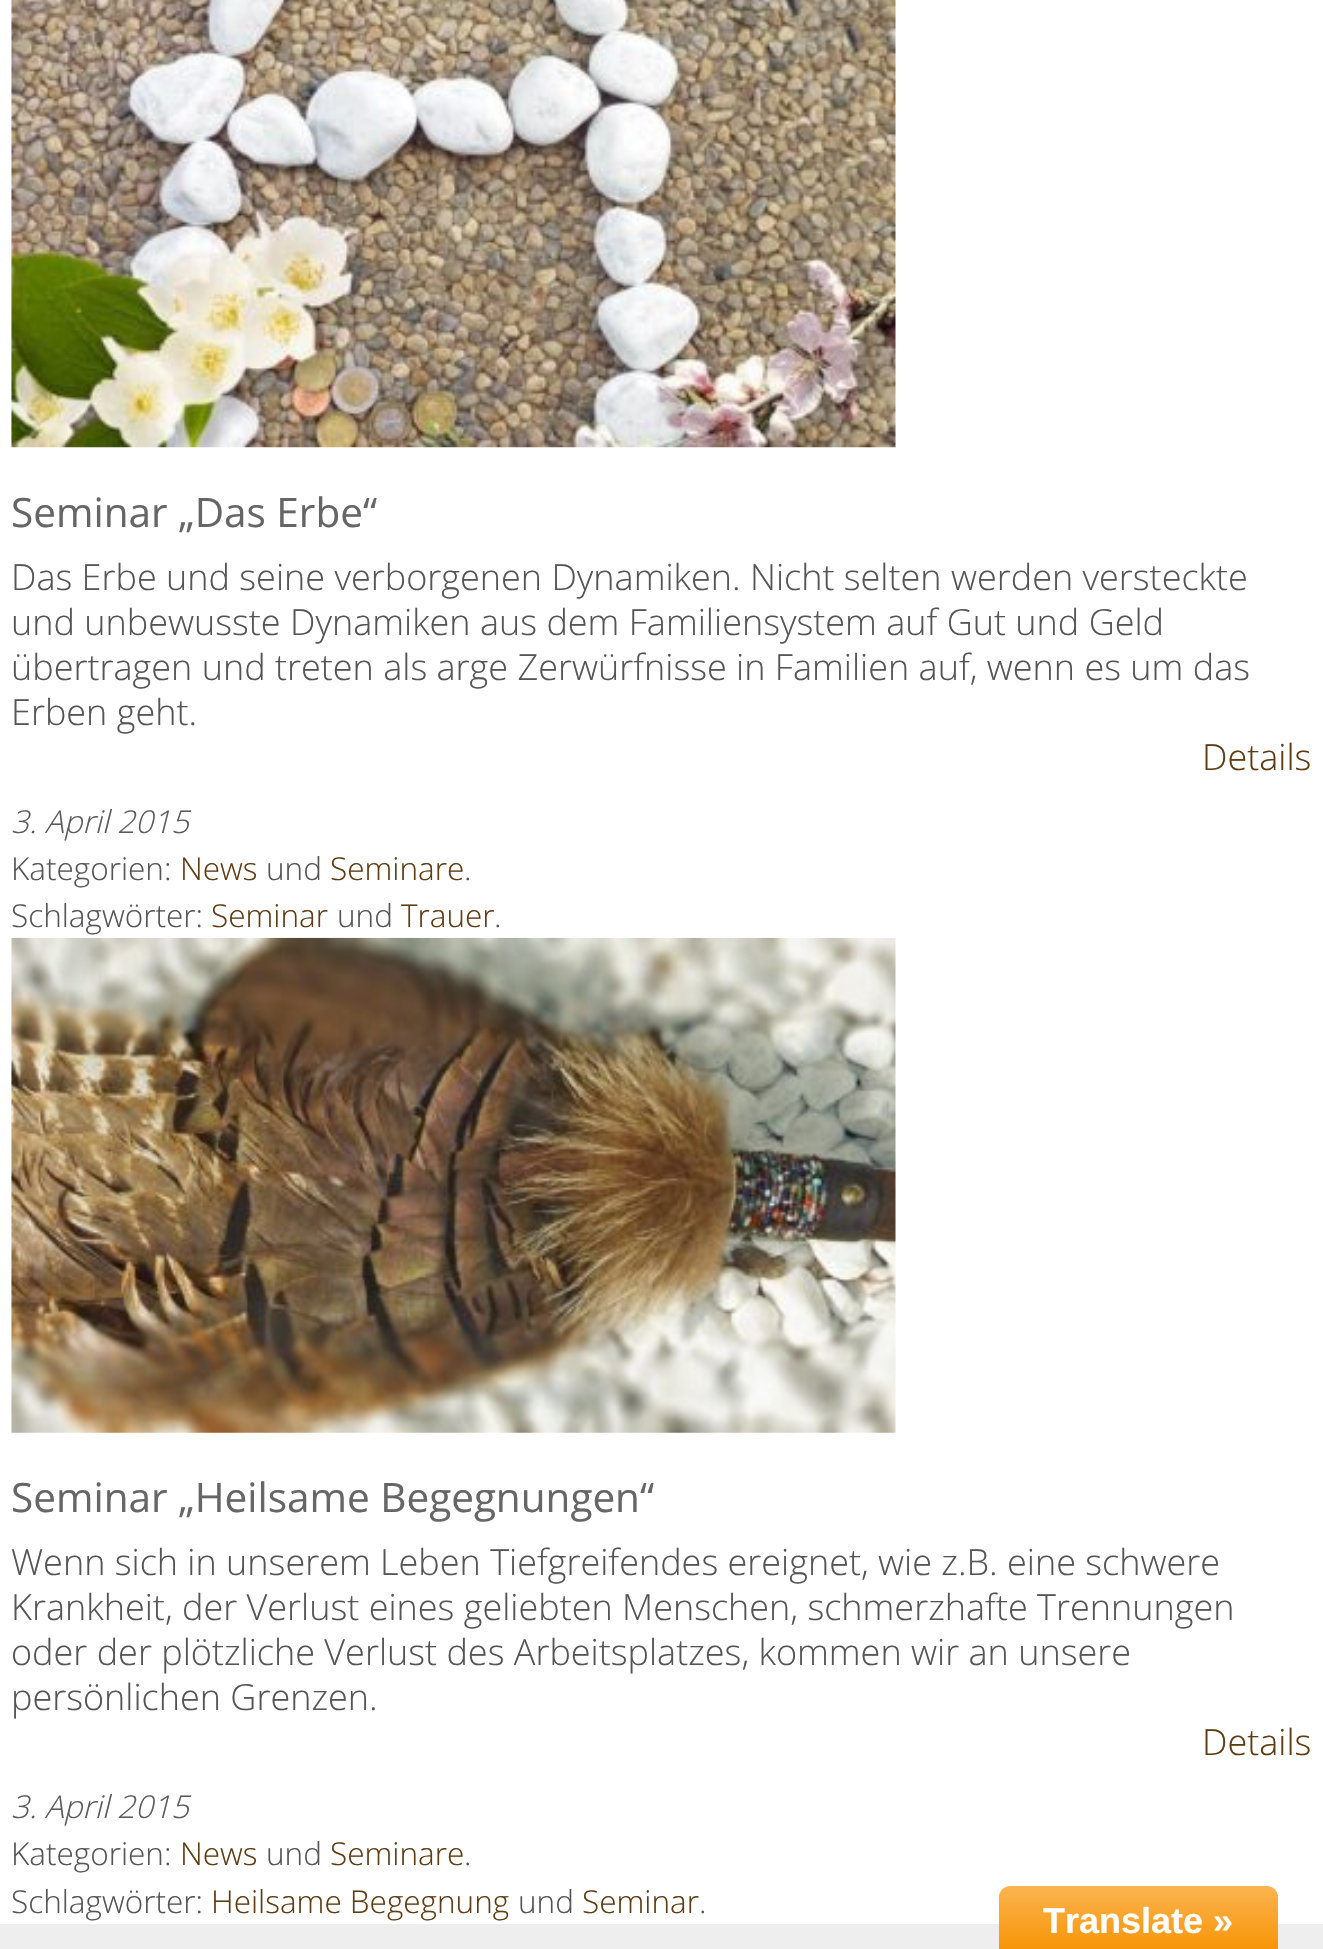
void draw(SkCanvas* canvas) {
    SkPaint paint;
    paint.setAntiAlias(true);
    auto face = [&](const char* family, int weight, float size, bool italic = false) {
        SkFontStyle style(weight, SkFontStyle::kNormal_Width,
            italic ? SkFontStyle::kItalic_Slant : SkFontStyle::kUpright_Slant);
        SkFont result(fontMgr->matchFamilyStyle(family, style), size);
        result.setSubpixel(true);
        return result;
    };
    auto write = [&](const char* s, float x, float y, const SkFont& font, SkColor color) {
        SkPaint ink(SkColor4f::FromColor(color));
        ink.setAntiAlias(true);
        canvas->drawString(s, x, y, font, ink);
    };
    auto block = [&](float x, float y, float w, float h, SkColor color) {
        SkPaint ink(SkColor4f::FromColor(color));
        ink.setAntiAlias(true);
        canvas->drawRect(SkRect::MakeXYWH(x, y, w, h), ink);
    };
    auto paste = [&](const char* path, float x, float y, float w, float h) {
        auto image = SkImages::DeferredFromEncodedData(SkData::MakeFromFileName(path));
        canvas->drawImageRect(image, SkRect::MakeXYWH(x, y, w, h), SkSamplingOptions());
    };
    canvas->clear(SK_ColorWHITE);
    paste("pic1.png", 11, 0, 885, 448);
    auto kFont1 = face("Open Sans", 400, 40.5f);
    write("Seminar „Das Erbe“", 11, 527, kFont1, SkColorSetRGB(102, 102, 102));
    auto kFont2 = face("Open Sans", 300, 36);
    write("Das Erbe und seine verborgenen Dynamiken. Nicht selten werden versteckte", 11, 590, kFont2, SkColorSetRGB(85, 85, 85));
    write("und unbewusste Dynamiken aus dem Familiensystem auf Gut und Geld", 11, 635, kFont2, SkColorSetRGB(85, 85, 85));
    write("übertragen und treten als arge Zerwürfnisse in Familien auf, wenn es um das", 11, 680, kFont2, SkColorSetRGB(85, 85, 85));
    write("Erben geht.", 11, 725, kFont2, SkColorSetRGB(85, 85, 85));
    write("Details", 1202, 770, kFont2, SkColorSetRGB(96, 60, 19));
    auto kFont3 = face("Open Sans", 300, 31.5f, true);
    write("3. April 2015", 11, 833, kFont3, SkColorSetRGB(91, 91, 91));
    auto kFont4 = face("Open Sans", 300, 31.5f);
    write("Kategorien:", 11, 880, kFont4, SkColorSetRGB(85, 85, 85));
    write("News", 180, 880, kFont4, SkColorSetRGB(96, 60, 19));
    write("und", 266, 880, kFont4, SkColorSetRGB(85, 85, 85));
    write("Seminare", 330, 880, kFont4, SkColorSetRGB(96, 60, 19));
    write(".", 464, 880, kFont4, SkColorSetRGB(85, 85, 85));
    write("Schlagwörter:", 11, 927, kFont4, SkColorSetRGB(85, 85, 85));
    write("Seminar", 211, 927, kFont4, SkColorSetRGB(96, 60, 19));
    write("und", 337, 927, kFont4, SkColorSetRGB(85, 85, 85));
    write("Trauer", 401, 927, kFont4, SkColorSetRGB(96, 60, 19));
    write(".", 494, 927, kFont4, SkColorSetRGB(85, 85, 85));
    paste("pic2.png", 11, 937, 885, 496);
    write("Seminar „Heilsame Begegnungen“", 11, 1512, kFont1, SkColorSetRGB(102, 102, 102));
    write("Wenn sich in unserem Leben Tiefgreifendes ereignet, wie z.B. eine schwere", 11, 1575, kFont2, SkColorSetRGB(85, 85, 85));
    write("Krankheit, der Verlust eines geliebten Menschen, schmerzhafte Trennungen", 11, 1620, kFont2, SkColorSetRGB(85, 85, 85));
    write("oder der plötzliche Verlust des Arbeitsplatzes, kommen wir an unsere", 11, 1665, kFont2, SkColorSetRGB(85, 85, 85));
    write("persönlichen Grenzen.", 11, 1710, kFont2, SkColorSetRGB(85, 85, 85));
    write("Details", 1202, 1755, kFont2, SkColorSetRGB(96, 60, 19));
    write("3. April 2015", 11, 1818, kFont3, SkColorSetRGB(91, 91, 91));
    write("Kategorien:", 11, 1865, kFont4, SkColorSetRGB(85, 85, 85));
    write("News", 180, 1865, kFont4, SkColorSetRGB(96, 60, 19));
    write("und", 266, 1865, kFont4, SkColorSetRGB(85, 85, 85));
    write("Seminare", 330, 1865, kFont4, SkColorSetRGB(96, 60, 19));
    write(".", 464, 1865, kFont4, SkColorSetRGB(85, 85, 85));
    write("Schlagwörter:", 11, 1913, kFont4, SkColorSetRGB(85, 85, 85));
    write("Heilsame Begegnung", 211, 1913, kFont4, SkColorSetRGB(96, 60, 19));
    write("und", 518, 1913, kFont4, SkColorSetRGB(85, 85, 85));
    write("Seminar", 582, 1913, kFont4, SkColorSetRGB(96, 60, 19));
    write(".", 699, 1913, kFont4, SkColorSetRGB(85, 85, 85));
    block(0, 1924, 1323, 25, SkColorSetRGB(238, 238, 238));
    {
        const SkColor colors[] = {SkColorSetRGB(251, 180, 80), SkColorSetRGB(248, 148, 6)};
        const float stops[] = {0, 1};
        const SkPoint ends[] = {{1139, 1886}, {1139, 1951}};
        paint.setShader(SkGradientShader::MakeLinear(ends, colors, stops, 2, SkTileMode::kClamp));
        paint.setAlpha(255);
    }
    canvas->drawPath(SkPathBuilder().moveTo(1010, 1886).lineTo(1267, 1886).cubicTo(1273, 1886, 1278, 1891, 1278, 1897).lineTo(1278, 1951).lineTo(999, 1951).lineTo(999, 1897).cubicTo(999, 1891, 1004, 1886, 1010, 1886).close().detach(), paint);
    auto kFont5 = face("Liberation Sans", 700, 36);
    write("Translate »", 1043, 1933, kFont5, SK_ColorWHITE);
}
